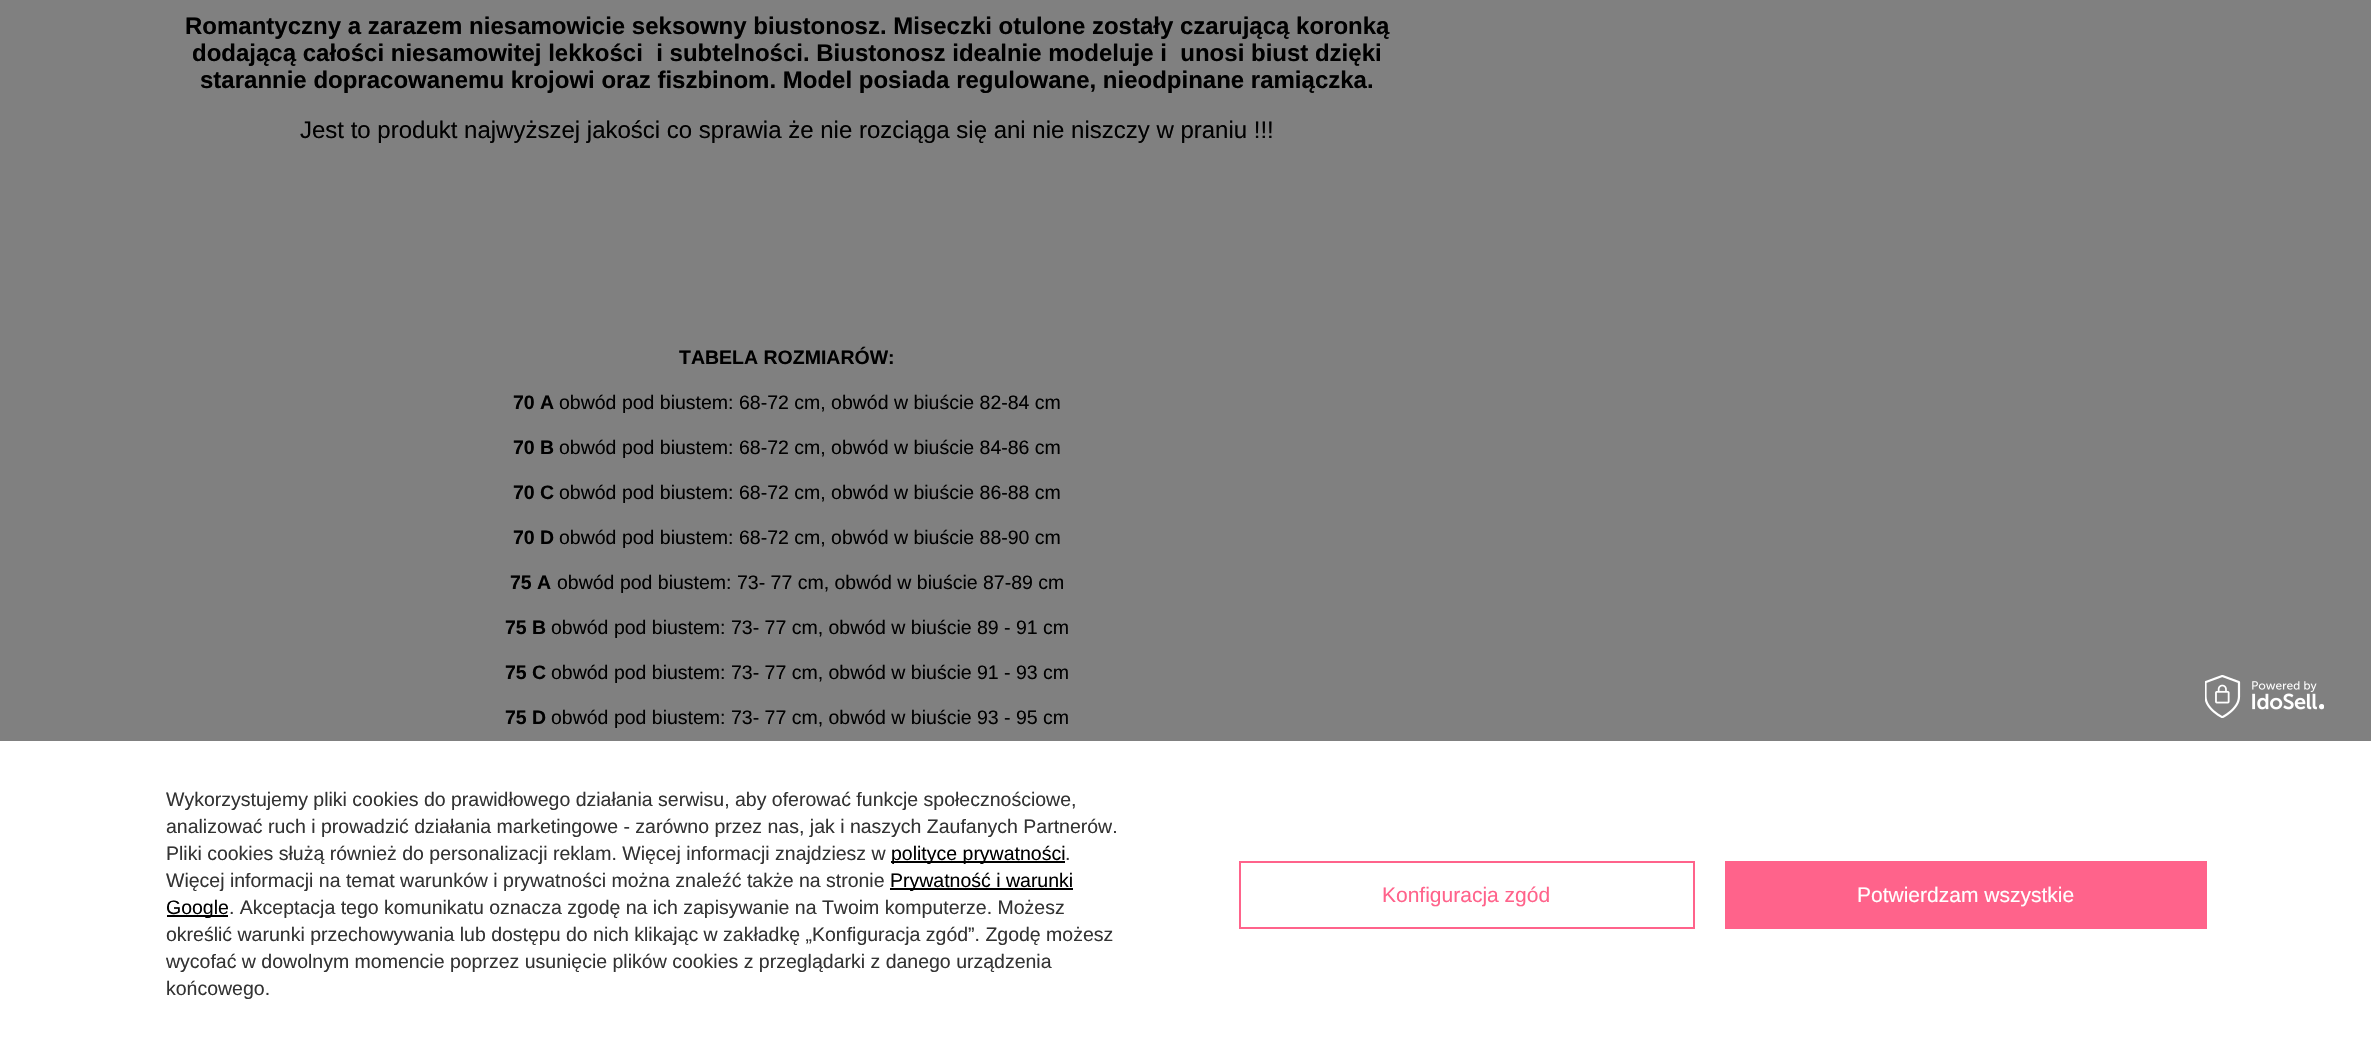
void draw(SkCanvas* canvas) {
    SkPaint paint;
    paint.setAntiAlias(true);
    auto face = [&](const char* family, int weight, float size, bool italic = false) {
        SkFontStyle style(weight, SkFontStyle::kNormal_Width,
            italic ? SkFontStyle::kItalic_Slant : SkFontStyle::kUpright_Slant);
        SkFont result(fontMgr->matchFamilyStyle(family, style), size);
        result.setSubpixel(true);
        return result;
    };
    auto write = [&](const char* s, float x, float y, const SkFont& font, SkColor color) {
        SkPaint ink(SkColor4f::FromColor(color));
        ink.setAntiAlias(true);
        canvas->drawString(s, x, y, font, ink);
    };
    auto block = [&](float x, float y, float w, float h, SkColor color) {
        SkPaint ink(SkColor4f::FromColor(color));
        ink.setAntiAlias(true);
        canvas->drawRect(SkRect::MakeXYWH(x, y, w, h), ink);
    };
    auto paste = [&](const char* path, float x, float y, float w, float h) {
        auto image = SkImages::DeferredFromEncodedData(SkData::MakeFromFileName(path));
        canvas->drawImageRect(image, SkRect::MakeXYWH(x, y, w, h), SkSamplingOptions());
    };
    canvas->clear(SkColorSetRGB(128, 128, 128));
    auto kFont1 = face("Liberation Sans", 700, 24);
    write("Romantyczny a zarazem niesamowicie seksowny biustonosz. Miseczki otulone zostały czarującą koronką", 185, 34, kFont1, SK_ColorBLACK);
    write("dodającą całości niesamowitej lekkości  i subtelności. Biustonosz idealnie modeluje i  unosi biust dzięki", 192, 61, kFont1, SK_ColorBLACK);
    write("starannie dopracowanemu krojowi oraz fiszbinom. Model posiada regulowane, nieodpinane ramiączka.", 200, 88, kFont1, SK_ColorBLACK);
    auto kFont2 = face("Liberation Sans", 400, 24);
    write("Jest to produkt najwyższej jakości co sprawia że nie rozciąga się ani nie niszczy w praniu !!!", 300, 138, kFont2, SK_ColorBLACK);
    auto kFont3 = face("Liberation Sans", 700, 19.5f);
    write("TABELA ROZMIARÓW:", 679, 364, kFont3, SK_ColorBLACK);
    write("70 A", 513, 409, kFont3, SK_ColorBLACK);
    auto kFont4 = face("Liberation Sans", 400, 19.5f);
    write("obwód pod biustem: 68-72 cm, obwód w biuście 82-84 cm", 559, 409, kFont4, SK_ColorBLACK);
    write("70 B", 513, 454, kFont3, SK_ColorBLACK);
    write("obwód pod biustem: 68-72 cm, obwód w biuście 84-86 cm", 559, 454, kFont4, SK_ColorBLACK);
    write("70 C", 513, 499, kFont3, SK_ColorBLACK);
    write("obwód pod biustem: 68-72 cm, obwód w biuście 86-88 cm", 559, 499, kFont4, SK_ColorBLACK);
    write("70 D", 513, 544, kFont3, SK_ColorBLACK);
    write("obwód pod biustem: 68-72 cm, obwód w biuście 88-90 cm", 559, 544, kFont4, SK_ColorBLACK);
    write("75 A", 510, 589, kFont3, SK_ColorBLACK);
    write("obwód pod biustem: 73- 77 cm, obwód w biuście 87-89 cm", 557, 589, kFont4, SK_ColorBLACK);
    write("75 B", 505, 634, kFont3, SK_ColorBLACK);
    write("obwód pod biustem: 73- 77 cm, obwód w biuście 89 - 91 cm", 551, 634, kFont4, SK_ColorBLACK);
    write("75 C", 505, 679, kFont3, SK_ColorBLACK);
    write("obwód pod biustem: 73- 77 cm, obwód w biuście 91 - 93 cm", 551, 679, kFont4, SK_ColorBLACK);
    write("75 D", 505, 724, kFont3, SK_ColorBLACK);
    write("obwód pod biustem: 73- 77 cm, obwód w biuście 93 - 95 cm", 551, 724, kFont4, SK_ColorBLACK);
    block(0, 741, 2371, 306, SK_ColorWHITE);
    paste("pic1.png", 2205, 675, 119, 43);
    write("Wykorzystujemy pliki cookies do prawidłowego działania serwisu, aby oferować funkcje społecznościowe,", 166, 806, kFont4, SkColorSetRGB(51, 51, 51));
    write("analizować ruch i prowadzić działania marketingowe - zarówno przez nas, jak i naszych Zaufanych Partnerów.", 166, 833, kFont4, SkColorSetRGB(51, 51, 51));
    write("Pliki cookies służą również do personalizacji reklam. Więcej informacji znajdziesz w", 166, 860, kFont4, SkColorSetRGB(51, 51, 51));
    block(891, 861, 174, 2, SK_ColorBLACK);
    write("polityce prywatności", 891, 860, kFont4, SK_ColorBLACK);
    write(".", 1065, 860, kFont4, SkColorSetRGB(51, 51, 51));
    write("Więcej informacji na temat warunków i prywatności można znaleźć także na stronie", 166, 887, kFont4, SkColorSetRGB(51, 51, 51));
    block(890, 888, 183, 2, SK_ColorBLACK);
    write("Prywatność i warunki", 890, 887, kFont4, SK_ColorBLACK);
    block(167, 915, 61, 2, SK_ColorBLACK);
    write("Google", 166, 914, kFont4, SK_ColorBLACK);
    write(". Akceptacja tego komunikatu oznacza zgodę na ich zapisywanie na Twoim komputerze. Możesz", 229, 914, kFont4, SkColorSetRGB(51, 51, 51));
    write("określić warunki przechowywania lub dostępu do nich klikając w zakładkę „Konfiguracja zgód”. Zgodę możesz", 166, 941, kFont4, SkColorSetRGB(51, 51, 51));
    write("wycofać w dowolnym momencie poprzez usunięcie plików cookies z przeglądarki z danego urządzenia", 166, 968, kFont4, SkColorSetRGB(51, 51, 51));
    write("końcowego.", 166, 995, kFont4, SkColorSetRGB(51, 51, 51));
    paint.setStyle(SkPaint::kStroke_Style);
    paint.setStrokeWidth(2);
    paint.setColor(SkColorSetRGB(255, 99, 139));
    canvas->drawRect(SkRect::MakeXYWH(1240, 862, 454, 66), paint);
    auto kFont5 = face("Liberation Sans", 400, 21);
    write("Konfiguracja zgód", 1382, 902, kFont5, SkColorSetRGB(255, 99, 139));
    block(1725, 861, 482, 68, SkColorSetRGB(255, 99, 139));
    write("Potwierdzam wszystkie", 1857, 902, kFont5, SK_ColorWHITE);
}
